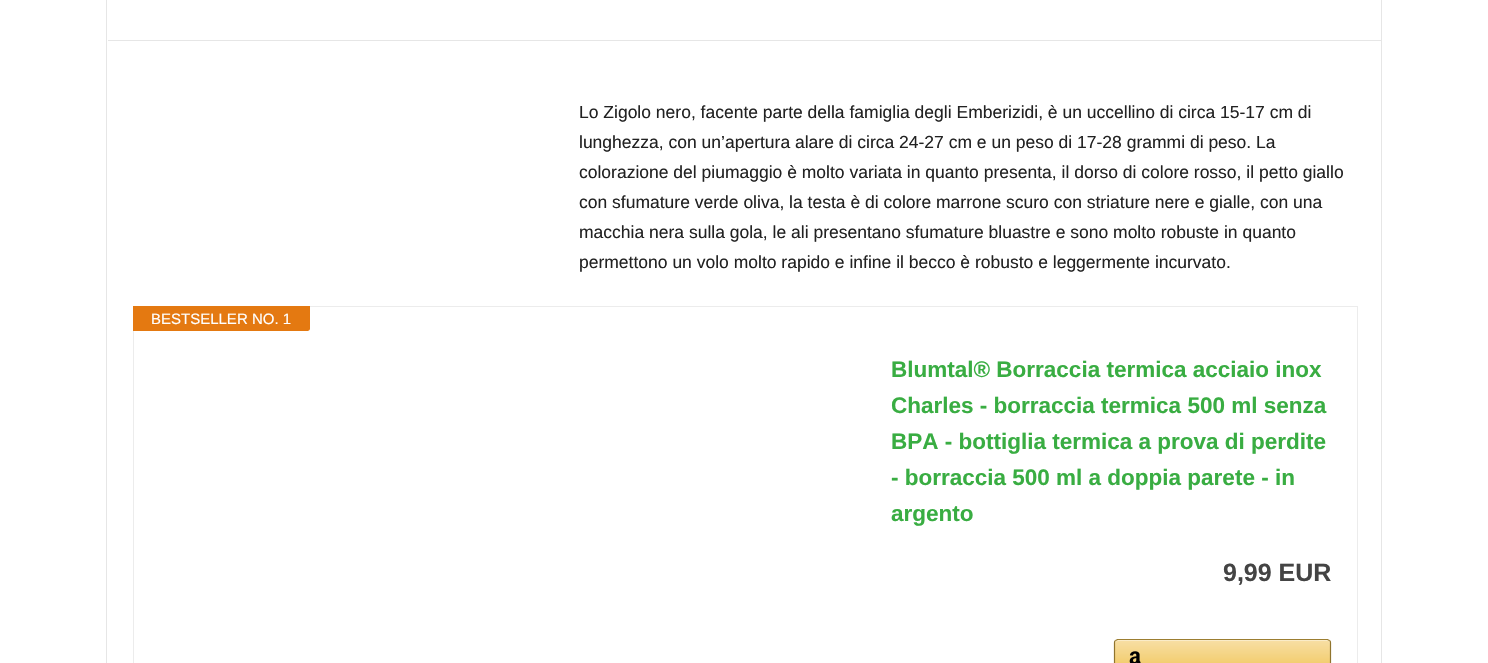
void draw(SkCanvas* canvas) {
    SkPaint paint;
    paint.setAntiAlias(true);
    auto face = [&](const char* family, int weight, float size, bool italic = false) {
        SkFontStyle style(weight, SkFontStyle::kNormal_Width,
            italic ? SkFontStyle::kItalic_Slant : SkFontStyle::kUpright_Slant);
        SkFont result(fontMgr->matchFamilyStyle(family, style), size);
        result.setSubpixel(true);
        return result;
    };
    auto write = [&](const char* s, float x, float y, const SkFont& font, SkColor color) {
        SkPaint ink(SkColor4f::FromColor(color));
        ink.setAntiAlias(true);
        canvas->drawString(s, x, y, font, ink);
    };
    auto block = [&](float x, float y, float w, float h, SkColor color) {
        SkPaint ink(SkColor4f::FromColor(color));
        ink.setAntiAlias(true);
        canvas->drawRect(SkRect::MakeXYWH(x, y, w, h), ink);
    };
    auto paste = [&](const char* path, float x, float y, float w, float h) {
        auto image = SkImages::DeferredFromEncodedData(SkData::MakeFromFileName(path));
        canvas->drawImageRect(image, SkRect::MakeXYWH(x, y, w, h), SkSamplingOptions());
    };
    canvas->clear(SK_ColorWHITE);
    block(106, 0, 1, 663, SkColorSetRGB(230, 230, 230));
    block(108, 40, 1273, 1, SkColorSetRGB(230, 230, 230));
    auto kFont1 = face("Liberation Sans", 400, 17.5f);
    write("Lo Zigolo nero, facente parte della famiglia degli Emberizidi, è un uccellino di circa 15-17 cm di", 579, 118, kFont1, SkColorSetRGB(34, 34, 34));
    write("lunghezza, con un’apertura alare di circa 24-27 cm e un peso di 17-28 grammi di peso. La", 579, 148, kFont1, SkColorSetRGB(34, 34, 34));
    write("colorazione del piumaggio è molto variata in quanto presenta, il dorso di colore rosso, il petto giallo", 579, 178, kFont1, SkColorSetRGB(34, 34, 34));
    write("con sfumature verde oliva, la testa è di colore marrone scuro con striature nere e gialle, con una", 579, 208, kFont1, SkColorSetRGB(34, 34, 34));
    write("macchia nera sulla gola, le ali presentano sfumature bluastre e sono molto robuste in quanto", 579, 238, kFont1, SkColorSetRGB(34, 34, 34));
    write("permettono un volo molto rapido e infine il becco è robusto e leggermente incurvato.", 579, 268, kFont1, SkColorSetRGB(34, 34, 34));
    paint.setStyle(SkPaint::kStroke_Style);
    paint.setStrokeWidth(1);
    paint.setColor(SkColorSetRGB(236, 236, 236));
    canvas->drawRect(SkRect::MakeXYWH(133.5f, 306.5f, 1224, 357), paint);
    paint.setStyle(SkPaint::kFill_Style);
    paint.setColor(SkColorSetRGB(228, 121, 17));
    canvas->drawPath(SkPathBuilder().moveTo(133, 306).lineTo(310, 306).lineTo(310, 328.5f).cubicTo(310, 330, 309, 331, 307.5f, 331).lineTo(133, 331).close().detach(), paint);
    auto kFont2 = face("Liberation Sans", 400, 15);
    write("BESTSELLER NO. 1", 151, 324, kFont2, SK_ColorWHITE);
    auto kFont3 = face("Liberation Sans", 700, 22.5f);
    write("Blumtal® Borraccia termica acciaio inox", 891, 377, kFont3, SkColorSetRGB(57, 173, 66));
    write("Charles - borraccia termica 500 ml senza", 891, 413, kFont3, SkColorSetRGB(57, 173, 66));
    write("BPA - bottiglia termica a prova di perdite", 891, 449, kFont3, SkColorSetRGB(57, 173, 66));
    write("- borraccia 500 ml a doppia parete - in", 891, 485, kFont3, SkColorSetRGB(57, 173, 66));
    write("argento", 891, 521, kFont3, SkColorSetRGB(57, 173, 66));
    auto kFont4 = face("Liberation Sans", 700, 25);
    write("9,99 EUR", 1223, 581, kFont4, SkColorSetRGB(68, 68, 68));
    canvas->save();
    canvas->clipPath(SkPathBuilder().moveTo(1118, 639).lineTo(1327, 639).cubicTo(1329, 639, 1331, 641, 1331, 643).lineTo(1331, 677).cubicTo(1331, 679, 1329, 681, 1327, 681).lineTo(1118, 681).cubicTo(1116, 681, 1114, 679, 1114, 677).lineTo(1114, 643).cubicTo(1114, 641, 1116, 639, 1118, 639).close().detach(), true);
    {
        const SkColor colors[] = {SkColorSetRGB(247, 223, 165), SkColorSetRGB(240, 193, 75)};
        const float stops[] = {0, 1};
        const SkPoint ends[] = {{1223, 640}, {1223, 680}};
        paint.setShader(SkGradientShader::MakeLinear(ends, colors, stops, 2, SkTileMode::kClamp));
        paint.setAlpha(255);
    }
    canvas->drawRect(SkRect::MakeXYWH(1114, 640, 217, 23), paint);
    canvas->restore();
    paint.setShader(nullptr);
    paint.setColor(SkColorSetRGB(250, 236, 200));
    canvas->drawPath(SkPathBuilder().moveTo(1118, 641).lineTo(1328, 641).cubicTo(1329, 641, 1330, 642, 1330, 644).lineTo(1330, 642).cubicTo(1330, 641, 1329, 640, 1328, 640).lineTo(1118, 640).cubicTo(1116, 640, 1115, 641, 1115, 642).lineTo(1115, 644).cubicTo(1115, 642, 1116, 641, 1118, 641).close().detach(), paint);
    paint.setStyle(SkPaint::kStroke_Style);
    paint.setStrokeWidth(1.2f);
    paint.setColor(SkColorSetRGB(156, 126, 49));
    canvas->drawPath(SkPathBuilder().moveTo(1115.5f, 640.5f).lineTo(1117.5f, 639.5f).lineTo(1327.5f, 639.5f).lineTo(1329.5f, 640.5f).detach(), paint);
    paint.setColor(SkColorSetRGB(144, 116, 45));
    canvas->drawPath(SkPathBuilder().moveTo(1329.5f, 640.5f).cubicTo(1330.5f, 641, 1330.5f, 641.5f, 1330.5f, 642.5f).lineTo(1330.5f, 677.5f).cubicTo(1330.5f, 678.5f, 1330.5f, 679, 1329.5f, 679.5f).detach(), paint);
    canvas->drawPath(SkPathBuilder().moveTo(1115.5f, 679.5f).cubicTo(1114.5f, 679, 1114.5f, 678.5f, 1114.5f, 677.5f).lineTo(1114.5f, 642.5f).cubicTo(1114.5f, 641.5f, 1114.5f, 641, 1115.5f, 640.5f).detach(), paint);
    paste("pic1.png", 1129, 651, 12, 12);
    block(1381, 0, 1, 663, SkColorSetRGB(230, 230, 230));
}
